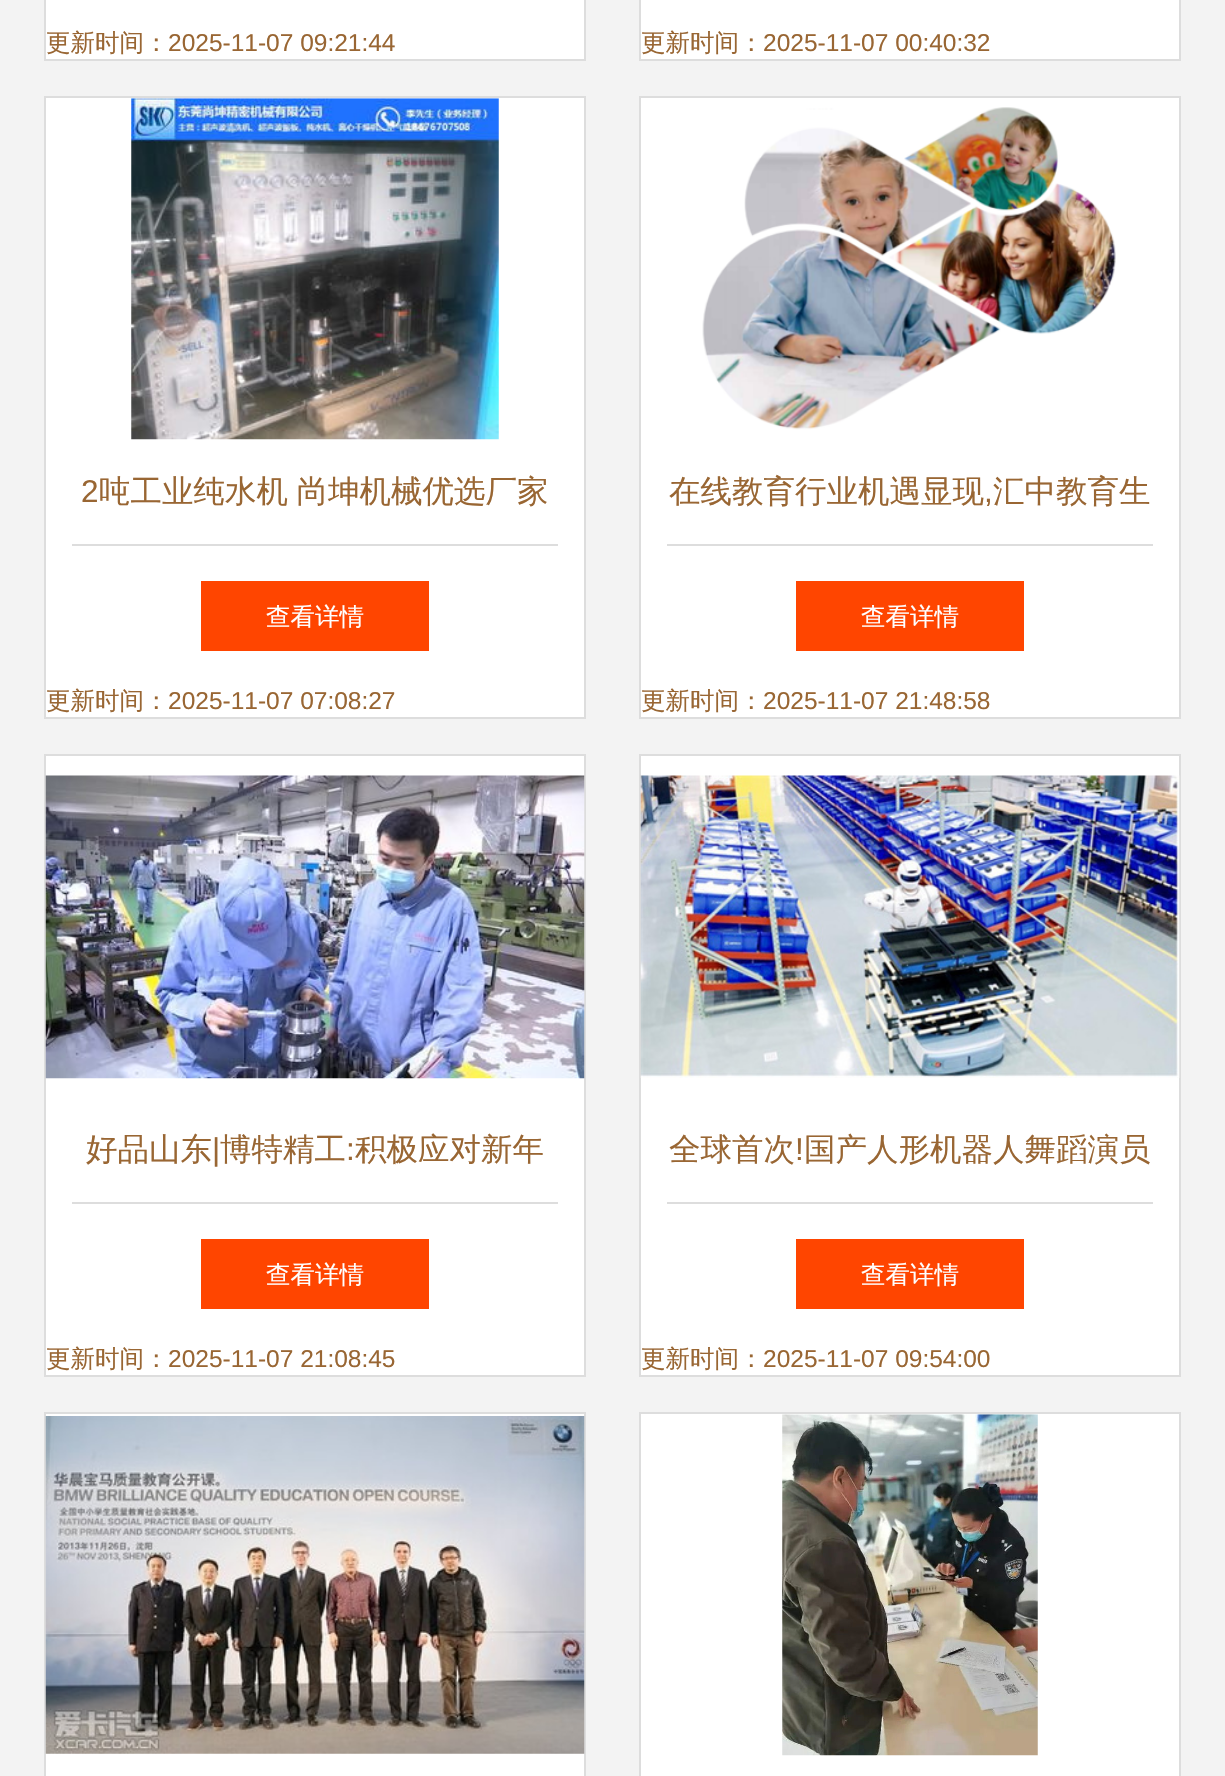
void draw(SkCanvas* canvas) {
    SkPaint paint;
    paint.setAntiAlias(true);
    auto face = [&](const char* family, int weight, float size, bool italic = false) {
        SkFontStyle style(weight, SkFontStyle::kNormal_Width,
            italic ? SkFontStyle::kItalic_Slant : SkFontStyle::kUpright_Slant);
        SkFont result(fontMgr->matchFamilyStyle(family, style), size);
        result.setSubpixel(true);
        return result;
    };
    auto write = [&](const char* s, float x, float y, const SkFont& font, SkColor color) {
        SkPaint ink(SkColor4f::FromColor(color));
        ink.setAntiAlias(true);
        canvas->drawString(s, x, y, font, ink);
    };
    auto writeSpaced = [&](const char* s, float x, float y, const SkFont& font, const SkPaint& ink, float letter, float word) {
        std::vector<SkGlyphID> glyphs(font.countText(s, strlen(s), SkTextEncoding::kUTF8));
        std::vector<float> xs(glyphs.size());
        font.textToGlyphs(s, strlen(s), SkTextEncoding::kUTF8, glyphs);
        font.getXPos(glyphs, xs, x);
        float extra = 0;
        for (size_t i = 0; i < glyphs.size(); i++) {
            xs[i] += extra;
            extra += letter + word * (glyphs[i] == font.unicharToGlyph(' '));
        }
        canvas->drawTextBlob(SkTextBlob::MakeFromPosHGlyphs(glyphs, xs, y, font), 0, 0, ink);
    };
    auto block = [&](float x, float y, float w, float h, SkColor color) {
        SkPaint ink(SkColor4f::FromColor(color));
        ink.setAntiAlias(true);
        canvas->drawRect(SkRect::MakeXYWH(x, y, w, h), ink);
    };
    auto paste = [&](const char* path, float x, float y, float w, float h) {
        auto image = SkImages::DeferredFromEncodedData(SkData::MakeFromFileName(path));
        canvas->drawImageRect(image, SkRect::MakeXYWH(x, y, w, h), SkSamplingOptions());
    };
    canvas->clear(SkColorSetRGB(243, 243, 243));
    paint.setColor(SK_ColorWHITE);
    canvas->drawRect(SkRect::MakeXYWH(45, -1, 540, 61), paint);
    paint.setStyle(SkPaint::kStroke_Style);
    paint.setStrokeWidth(2);
    paint.setColor(SkColorSetRGB(221, 221, 221));
    canvas->drawRect(SkRect::MakeXYWH(45, -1, 540, 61), paint);
    auto kFont1 = face("WenQuanYi Zen Hei", 500, 24.5f);
    write("更新时间：", 46, 51, kFont1, SkColorSetRGB(153, 102, 51));
    auto kFont2 = face("Liberation Sans", 400, 24.5f);
    write("2025-11-07 09:21:44", 168, 51, kFont2, SkColorSetRGB(153, 102, 51));
    paint.setStyle(SkPaint::kFill_Style);
    paint.setColor(SK_ColorWHITE);
    canvas->drawRect(SkRect::MakeXYWH(640, -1, 540, 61), paint);
    paint.setStyle(SkPaint::kStroke_Style);
    paint.setColor(SkColorSetRGB(221, 221, 221));
    canvas->drawRect(SkRect::MakeXYWH(640, -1, 540, 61), paint);
    write("更新时间：", 641, 51, kFont1, SkColorSetRGB(153, 102, 51));
    write("2025-11-07 00:40:32", 763, 51, kFont2, SkColorSetRGB(153, 102, 51));
    paint.setStyle(SkPaint::kFill_Style);
    paint.setColor(SK_ColorWHITE);
    canvas->drawRect(SkRect::MakeXYWH(45, 97, 540, 621), paint);
    paint.setStyle(SkPaint::kStroke_Style);
    paint.setColor(SkColorSetRGB(221, 221, 221));
    canvas->drawRect(SkRect::MakeXYWH(45, 97, 540, 621), paint);
    paste("pic1.png", 131, 98, 368, 342);
    block(72, 544, 486, 2, SkColorSetRGB(221, 221, 221));
    auto kFont3 = face("Liberation Sans", 400, 31.5f);
    write("2", 81, 502, kFont3, SkColorSetRGB(153, 102, 51));
    auto kFont4 = face("WenQuanYi Zen Hei", 500, 31.5f);
    paint.setStyle(SkPaint::kFill_Style);
    paint.setColor(SkColorSetRGB(153, 102, 51));
    writeSpaced("吨工业纯水机 尚坤机械优选厂家", 99, 502, kFont4, paint, 0, -1);
    block(201, 581, 228, 70, SkColorSetRGB(255, 69, 0));
    write("查看详情", 266, 625, kFont1, SK_ColorWHITE);
    write("更新时间：", 46, 709, kFont1, SkColorSetRGB(153, 102, 51));
    write("2025-11-07 07:08:27", 168, 709, kFont2, SkColorSetRGB(153, 102, 51));
    paint.setColor(SK_ColorWHITE);
    canvas->drawRect(SkRect::MakeXYWH(640, 97, 540, 621), paint);
    paint.setStyle(SkPaint::kStroke_Style);
    paint.setColor(SkColorSetRGB(221, 221, 221));
    canvas->drawRect(SkRect::MakeXYWH(640, 97, 540, 621), paint);
    paste("pic2.png", 702, 107, 414, 323);
    block(667, 544, 486, 2, SkColorSetRGB(221, 221, 221));
    write("在线教育行业机遇显现", 669, 502, kFont4, SkColorSetRGB(153, 102, 51));
    write(",", 984, 502, kFont3, SkColorSetRGB(153, 102, 51));
    write("汇中教育生", 993, 502, kFont4, SkColorSetRGB(153, 102, 51));
    block(796, 581, 228, 70, SkColorSetRGB(255, 69, 0));
    write("查看详情", 861, 625, kFont1, SK_ColorWHITE);
    write("更新时间：", 641, 709, kFont1, SkColorSetRGB(153, 102, 51));
    write("2025-11-07 21:48:58", 763, 709, kFont2, SkColorSetRGB(153, 102, 51));
    paint.setStyle(SkPaint::kFill_Style);
    paint.setColor(SK_ColorWHITE);
    canvas->drawRect(SkRect::MakeXYWH(45, 755, 540, 621), paint);
    paint.setStyle(SkPaint::kStroke_Style);
    paint.setColor(SkColorSetRGB(221, 221, 221));
    canvas->drawRect(SkRect::MakeXYWH(45, 755, 540, 621), paint);
    paste("pic3.png", 45, 775, 540, 304);
    block(72, 1202, 486, 2, SkColorSetRGB(221, 221, 221));
    write("好品山东", 86, 1160, kFont4, SkColorSetRGB(153, 102, 51));
    write("|", 212, 1160, kFont3, SkColorSetRGB(153, 102, 51));
    write("博特精工", 220, 1160, kFont4, SkColorSetRGB(153, 102, 51));
    write(":", 346, 1160, kFont3, SkColorSetRGB(153, 102, 51));
    write("积极应对新年", 355, 1160, kFont4, SkColorSetRGB(153, 102, 51));
    block(201, 1239, 228, 70, SkColorSetRGB(255, 69, 0));
    write("查看详情", 266, 1283, kFont1, SK_ColorWHITE);
    write("更新时间：", 46, 1367, kFont1, SkColorSetRGB(153, 102, 51));
    write("2025-11-07 21:08:45", 168, 1367, kFont2, SkColorSetRGB(153, 102, 51));
    paint.setStyle(SkPaint::kFill_Style);
    paint.setColor(SK_ColorWHITE);
    canvas->drawRect(SkRect::MakeXYWH(640, 755, 540, 621), paint);
    paint.setStyle(SkPaint::kStroke_Style);
    paint.setColor(SkColorSetRGB(221, 221, 221));
    canvas->drawRect(SkRect::MakeXYWH(640, 755, 540, 621), paint);
    paste("pic4.png", 640, 775, 540, 303);
    block(667, 1202, 486, 2, SkColorSetRGB(221, 221, 221));
    write("全球首次", 669, 1160, kFont4, SkColorSetRGB(153, 102, 51));
    write("!", 795, 1160, kFont3, SkColorSetRGB(153, 102, 51));
    write("国产人形机器人舞蹈演员", 804, 1160, kFont4, SkColorSetRGB(153, 102, 51));
    block(796, 1239, 228, 70, SkColorSetRGB(255, 69, 0));
    write("查看详情", 861, 1283, kFont1, SK_ColorWHITE);
    write("更新时间：", 641, 1367, kFont1, SkColorSetRGB(153, 102, 51));
    write("2025-11-07 09:54:00", 763, 1367, kFont2, SkColorSetRGB(153, 102, 51));
    paint.setStyle(SkPaint::kFill_Style);
    paint.setColor(SK_ColorWHITE);
    canvas->drawRect(SkRect::MakeXYWH(45, 1413, 540, 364), paint);
    paint.setStyle(SkPaint::kStroke_Style);
    paint.setColor(SkColorSetRGB(221, 221, 221));
    canvas->drawRect(SkRect::MakeXYWH(45, 1413, 540, 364), paint);
    paste("pic5.png", 45, 1416, 540, 338);
    paint.setStyle(SkPaint::kFill_Style);
    paint.setColor(SK_ColorWHITE);
    canvas->drawRect(SkRect::MakeXYWH(640, 1413, 540, 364), paint);
    paint.setStyle(SkPaint::kStroke_Style);
    paint.setColor(SkColorSetRGB(221, 221, 221));
    canvas->drawRect(SkRect::MakeXYWH(640, 1413, 540, 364), paint);
    paste("pic6.png", 782, 1414, 256, 342);
}
